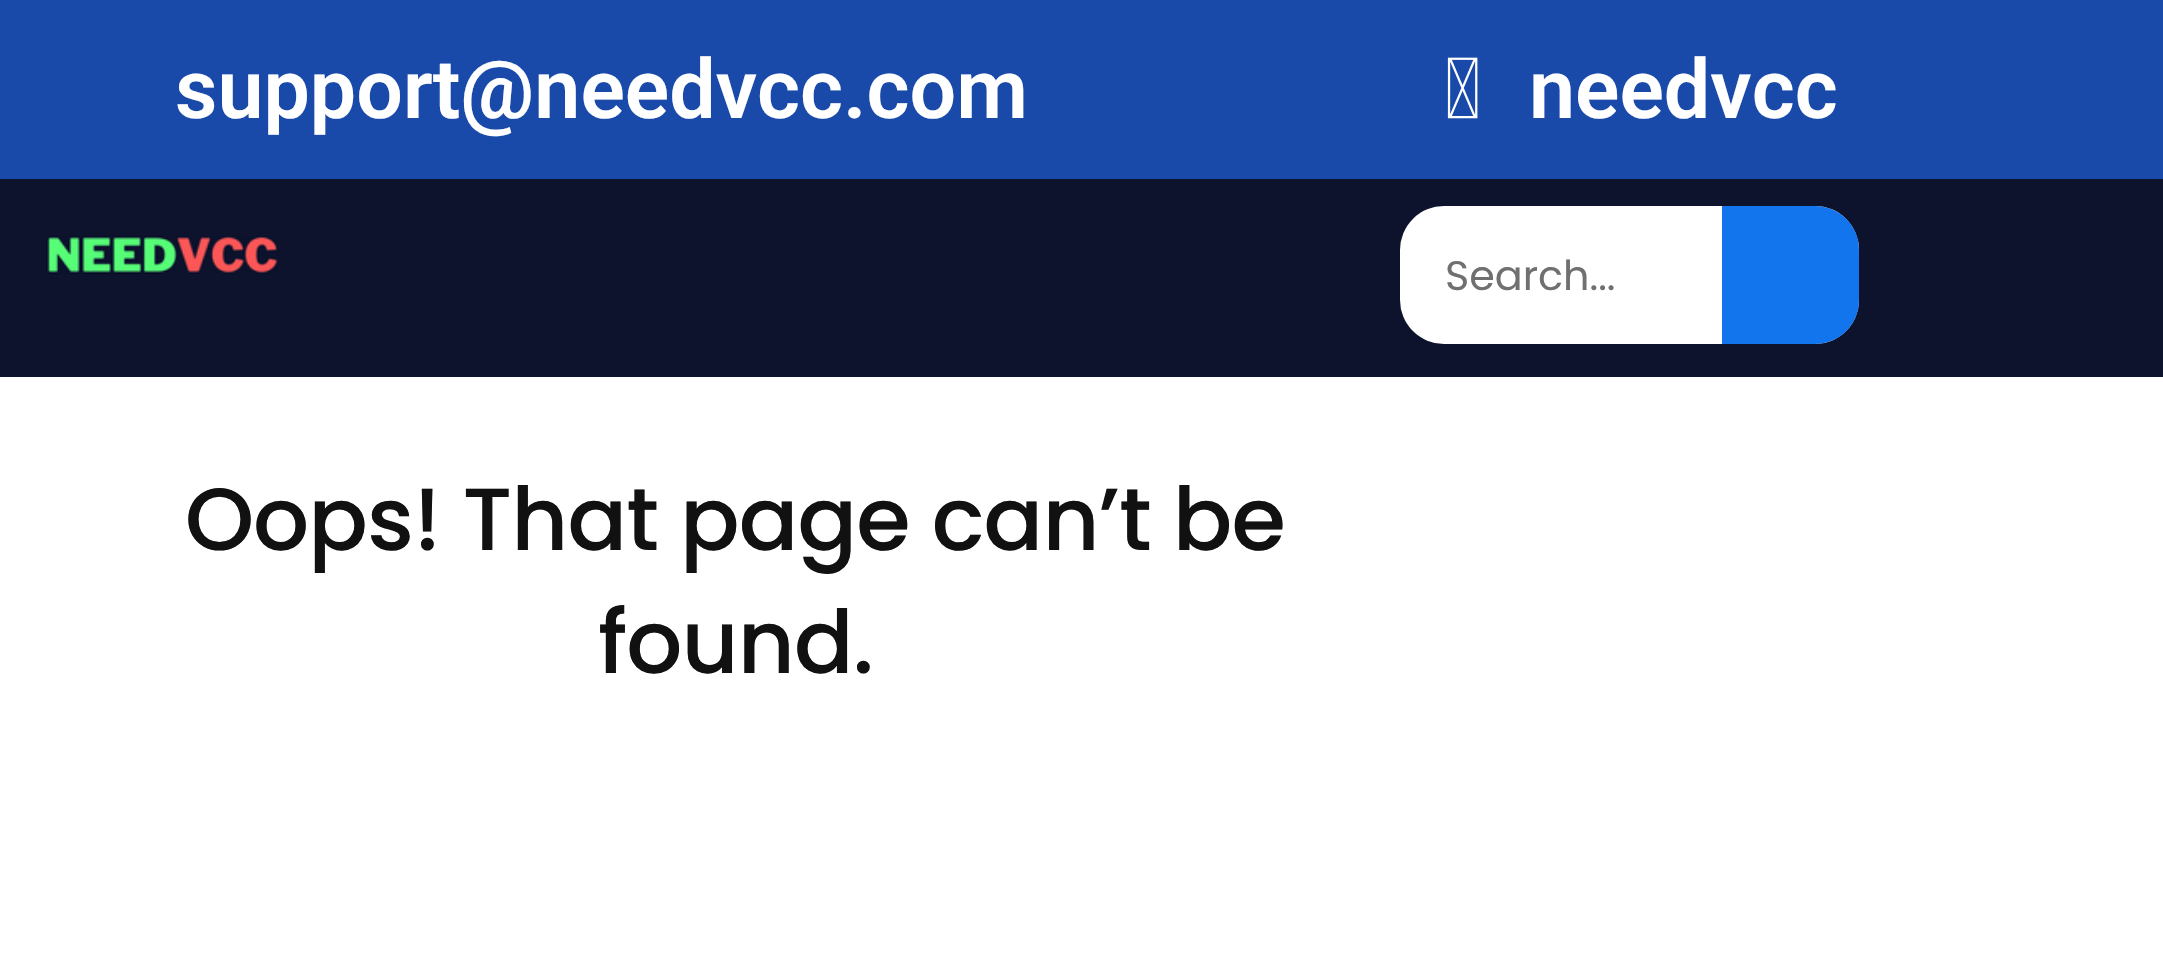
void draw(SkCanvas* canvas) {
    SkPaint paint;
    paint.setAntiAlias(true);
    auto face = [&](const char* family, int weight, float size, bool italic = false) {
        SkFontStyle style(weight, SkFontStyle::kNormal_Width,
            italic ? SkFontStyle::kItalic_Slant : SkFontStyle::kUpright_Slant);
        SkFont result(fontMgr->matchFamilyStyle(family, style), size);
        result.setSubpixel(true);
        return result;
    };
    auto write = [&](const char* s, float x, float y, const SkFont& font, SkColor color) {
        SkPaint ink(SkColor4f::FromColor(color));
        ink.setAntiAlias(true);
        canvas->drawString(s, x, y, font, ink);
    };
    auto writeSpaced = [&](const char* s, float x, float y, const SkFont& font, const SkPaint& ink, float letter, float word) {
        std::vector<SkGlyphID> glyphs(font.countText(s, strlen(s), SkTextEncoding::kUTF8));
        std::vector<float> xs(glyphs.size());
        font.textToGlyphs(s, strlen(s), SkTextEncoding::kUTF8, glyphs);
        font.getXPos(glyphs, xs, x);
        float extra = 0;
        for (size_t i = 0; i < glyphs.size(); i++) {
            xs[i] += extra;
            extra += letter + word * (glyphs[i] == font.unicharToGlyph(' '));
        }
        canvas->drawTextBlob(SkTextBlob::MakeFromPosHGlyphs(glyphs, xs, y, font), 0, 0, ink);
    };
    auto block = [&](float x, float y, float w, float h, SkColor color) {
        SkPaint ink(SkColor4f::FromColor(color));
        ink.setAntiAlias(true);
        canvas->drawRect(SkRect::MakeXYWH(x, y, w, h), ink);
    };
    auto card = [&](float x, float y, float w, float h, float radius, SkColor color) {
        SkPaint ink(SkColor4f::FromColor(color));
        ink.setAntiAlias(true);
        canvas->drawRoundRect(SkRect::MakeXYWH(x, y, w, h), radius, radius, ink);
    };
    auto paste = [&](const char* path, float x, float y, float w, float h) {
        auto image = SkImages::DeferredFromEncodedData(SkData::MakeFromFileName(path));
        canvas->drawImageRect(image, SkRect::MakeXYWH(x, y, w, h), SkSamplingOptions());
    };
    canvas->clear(SK_ColorWHITE);
    block(0, 0, 2163, 179, SkColorSetRGB(25, 74, 170));
    auto kFont1 = face("Roboto", 600, 82.5f);
    write("support@needvcc.com", 175, 118, kFont1, SK_ColorWHITE);
    paste("pic1.png", 1447, 57, 31, 62);
    write("needvcc", 1529, 118, kFont1, SK_ColorWHITE);
    block(0, 179, 2163, 198, SkColorSetRGB(13, 19, 45));
    paste("pic2.png", 46, 236, 233, 38);
    card(1400, 206, 459, 138, 44, SK_ColorWHITE);
    auto kFont2 = face("Poppins", 400, 41.25f);
    write("Search...", 1445, 290, kFont2, SkColorSetRGB(112, 112, 112));
    paint.setColor(SkColorSetRGB(18, 117, 237));
    canvas->drawPath(SkPathBuilder().moveTo(1722, 206).lineTo(1815, 206).cubicTo(1839.5f, 206, 1859, 225.5f, 1859, 250).lineTo(1859, 300).cubicTo(1859, 324.5f, 1839.5f, 344, 1815, 344).lineTo(1722, 344).close().detach(), paint);
    auto kFont3 = face("Poppins", 500, 88);
    paint.setColor(SkColorSetRGB(17, 17, 17));
    writeSpaced("Oops! That page can’t be", 185, 550, kFont3, paint, -0.9f, 0);
    writeSpaced("found.", 598, 673, kFont3, paint, -0.9f, 0);
}
